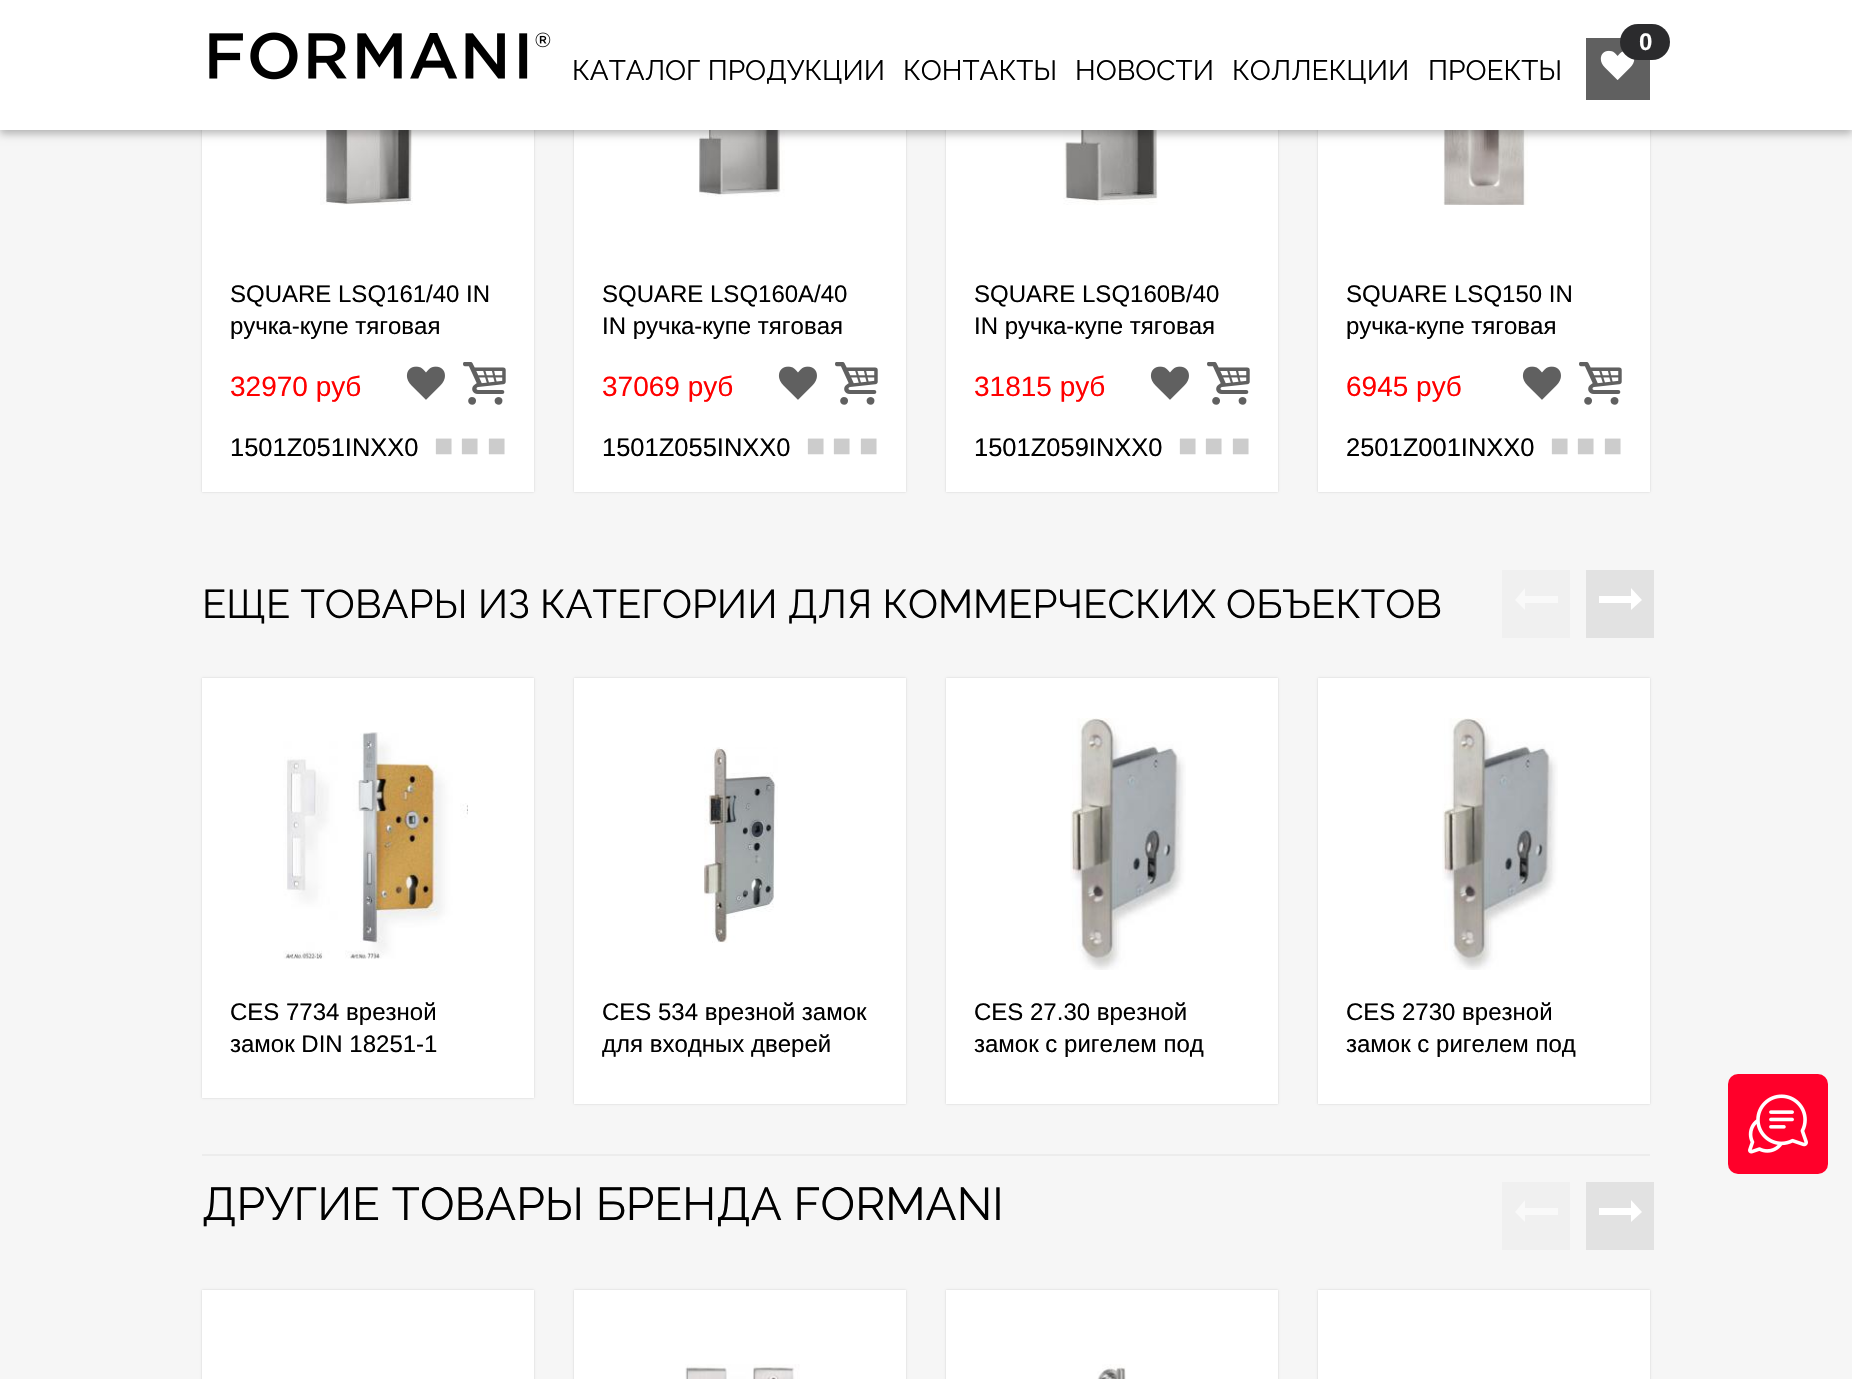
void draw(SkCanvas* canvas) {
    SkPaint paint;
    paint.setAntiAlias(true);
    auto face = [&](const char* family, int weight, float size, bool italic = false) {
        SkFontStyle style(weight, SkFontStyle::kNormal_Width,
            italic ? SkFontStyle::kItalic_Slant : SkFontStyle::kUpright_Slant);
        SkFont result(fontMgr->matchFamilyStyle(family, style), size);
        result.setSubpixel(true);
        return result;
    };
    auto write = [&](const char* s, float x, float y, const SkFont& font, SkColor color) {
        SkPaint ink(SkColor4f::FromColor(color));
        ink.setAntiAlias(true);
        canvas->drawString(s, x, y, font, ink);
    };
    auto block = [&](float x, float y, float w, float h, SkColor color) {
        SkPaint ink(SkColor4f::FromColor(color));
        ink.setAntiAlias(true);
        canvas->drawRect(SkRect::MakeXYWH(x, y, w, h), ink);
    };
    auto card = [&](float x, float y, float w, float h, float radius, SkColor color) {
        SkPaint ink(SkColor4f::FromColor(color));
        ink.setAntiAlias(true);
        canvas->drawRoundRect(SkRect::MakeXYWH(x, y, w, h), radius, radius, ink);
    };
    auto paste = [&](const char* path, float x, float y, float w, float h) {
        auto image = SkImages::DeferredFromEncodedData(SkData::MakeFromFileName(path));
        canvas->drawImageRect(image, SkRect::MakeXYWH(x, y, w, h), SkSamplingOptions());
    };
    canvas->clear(SkColorSetRGB(246, 246, 246));
    paint.setColor(SkColorSetARGB(38, 0, 0, 0));
    paint.setMaskFilter(SkMaskFilter::MakeBlur(kNormal_SkBlurStyle, 1));
    canvas->drawRect(SkRect::MakeXYWH(202, -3, 332, 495), paint);
    paint.setMaskFilter(nullptr);
    block(202, 130, 332, 362, SK_ColorWHITE);
    paste("pic3.png", 320, 130, 93, 75);
    paint.setMaskFilter(SkMaskFilter::MakeBlur(kNormal_SkBlurStyle, 1));
    canvas->drawRect(SkRect::MakeXYWH(574, -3, 332, 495), paint);
    paint.setMaskFilter(nullptr);
    block(574, 130, 332, 362, SK_ColorWHITE);
    paste("pic6.png", 699, 130, 86, 67);
    paint.setMaskFilter(SkMaskFilter::MakeBlur(kNormal_SkBlurStyle, 1));
    canvas->drawRect(SkRect::MakeXYWH(946, -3, 332, 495), paint);
    paint.setMaskFilter(nullptr);
    block(946, 130, 332, 362, SK_ColorWHITE);
    paste("pic7.png", 1063, 130, 95, 75);
    paint.setMaskFilter(SkMaskFilter::MakeBlur(kNormal_SkBlurStyle, 1));
    canvas->drawRect(SkRect::MakeXYWH(1318, -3, 332, 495), paint);
    paint.setMaskFilter(nullptr);
    block(1318, 130, 332, 362, SK_ColorWHITE);
    paste("pic8.png", 1443, 130, 85, 75);
    paint.setColor(SkColorSetARGB(69, 0, 0, 0));
    paint.setMaskFilter(SkMaskFilter::MakeBlur(kNormal_SkBlurStyle, 4));
    canvas->drawRect(SkRect::MakeXYWH(0, 4, 1852, 130), paint);
    paint.setMaskFilter(nullptr);
    block(0, 0, 1852, 130, SK_ColorWHITE);
    paste("pic1.png", 209, 32, 342, 48);
    block(1586, 38, 64, 62, SkColorSetRGB(96, 96, 96));
    paste("pic2.png", 1600, 50, 35, 30);
    card(1620, 24, 50, 36, 18, SkColorSetRGB(43, 43, 45));
    auto kFont1 = face("Liberation Sans", 700, 24);
    write("0", 1639, 50, kFont1, SK_ColorWHITE);
    auto kFont2 = face("Raleway", 400, 28);
    write("КАТАЛОГ ПРОДУКЦИИ", 572, 80, kFont2, SK_ColorBLACK);
    write("КОНТАКТЫ", 903, 80, kFont2, SK_ColorBLACK);
    write("НОВОСТИ", 1075, 80, kFont2, SK_ColorBLACK);
    write("КОЛЛЕКЦИИ", 1232, 80, kFont2, SK_ColorBLACK);
    write("ПРОЕКТЫ", 1428, 80, kFont2, SK_ColorBLACK);
    auto kFont3 = face("Liberation Sans", 400, 24);
    write("SQUARE LSQ161/40 IN", 230, 302, kFont3, SK_ColorBLACK);
    write("ручка-купе тяговая", 230, 334, kFont3, SK_ColorBLACK);
    auto kFont4 = face("Liberation Sans", 400, 28);
    write("32970 руб", 230, 396, kFont4, SkColorSetRGB(255, 0, 0));
    paste("pic4.png", 406, 366, 39, 34);
    paste("pic5.png", 463, 362, 43, 43);
    auto kFont5 = face("Liberation Sans", 400, 25.5f);
    write("1501Z051INXX0", 230, 456, kFont5, SK_ColorBLACK);
    auto kFont6 = face("Liberation Sans", 400, 32, true);
    write("■", 434, 456, kFont6, SkColorSetRGB(204, 204, 204));
    write("■", 460, 456, kFont6, SkColorSetRGB(204, 204, 204));
    write("■", 487, 456, kFont6, SkColorSetRGB(204, 204, 204));
    write("SQUARE LSQ160A/40", 602, 302, kFont3, SK_ColorBLACK);
    write("IN ручка-купе тяговая", 602, 334, kFont3, SK_ColorBLACK);
    write("37069 руб", 602, 396, kFont4, SkColorSetRGB(255, 0, 0));
    paste("pic4.png", 778, 366, 39, 34);
    paste("pic5.png", 835, 362, 43, 43);
    write("1501Z055INXX0", 602, 456, kFont5, SK_ColorBLACK);
    write("■", 806, 456, kFont6, SkColorSetRGB(204, 204, 204));
    write("■", 832, 456, kFont6, SkColorSetRGB(204, 204, 204));
    write("■", 859, 456, kFont6, SkColorSetRGB(204, 204, 204));
    write("SQUARE LSQ160B/40", 974, 302, kFont3, SK_ColorBLACK);
    write("IN ручка-купе тяговая", 974, 334, kFont3, SK_ColorBLACK);
    write("31815 руб", 974, 396, kFont4, SkColorSetRGB(255, 0, 0));
    paste("pic4.png", 1150, 366, 39, 34);
    paste("pic5.png", 1207, 362, 43, 43);
    write("1501Z059INXX0", 974, 456, kFont5, SK_ColorBLACK);
    write("■", 1178, 456, kFont6, SkColorSetRGB(204, 204, 204));
    write("■", 1204, 456, kFont6, SkColorSetRGB(204, 204, 204));
    write("■", 1231, 456, kFont6, SkColorSetRGB(204, 204, 204));
    write("SQUARE LSQ150 IN", 1346, 302, kFont3, SK_ColorBLACK);
    write("ручка-купе тяговая", 1346, 334, kFont3, SK_ColorBLACK);
    write("6945 руб", 1346, 396, kFont4, SkColorSetRGB(255, 0, 0));
    paste("pic4.png", 1522, 366, 39, 34);
    paste("pic5.png", 1579, 362, 43, 43);
    write("2501Z001INXX0", 1346, 456, kFont5, SK_ColorBLACK);
    write("■", 1550, 456, kFont6, SkColorSetRGB(204, 204, 204));
    write("■", 1576, 456, kFont6, SkColorSetRGB(204, 204, 204));
    write("■", 1603, 456, kFont6, SkColorSetRGB(204, 204, 204));
    auto kFont7 = face("Raleway", 400, 40);
    write("ЕЩЕ ТОВАРЫ ИЗ КАТЕГОРИИ ДЛЯ КОММЕРЧЕСКИХ ОБЪЕКТОВ", 202, 618, kFont7, SK_ColorBLACK);
    block(1502, 570, 68, 68, SkColorSetRGB(240, 240, 240));
    paint.setColor(SkColorSetRGB(249, 249, 249));
    canvas->drawPath(SkPathBuilder().moveTo(1525, 610).lineTo(1515, 600).lineTo(1525, 588).lineTo(1525, 596).lineTo(1558, 596).lineTo(1558, 603).lineTo(1525, 603).close().detach(), paint);
    block(1586, 570, 68, 68, SkColorSetRGB(226, 226, 226));
    paint.setColor(SK_ColorWHITE);
    canvas->drawPath(SkPathBuilder().moveTo(1631, 610).lineTo(1631, 603).lineTo(1599, 603).lineTo(1599, 596).lineTo(1631, 596).lineTo(1631, 588).lineTo(1642, 600).close().detach(), paint);
    paint.setColor(SkColorSetARGB(38, 0, 0, 0));
    paint.setMaskFilter(SkMaskFilter::MakeBlur(kNormal_SkBlurStyle, 1));
    canvas->drawRect(SkRect::MakeXYWH(202, 678, 332, 420), paint);
    paint.setMaskFilter(nullptr);
    block(202, 678, 332, 420, SK_ColorWHITE);
    paste("pic9.png", 283, 732, 185, 227);
    write("CES 7734 врезной", 230, 1020, kFont3, SK_ColorBLACK);
    write("замок DIN 18251-1", 230, 1052, kFont3, SK_ColorBLACK);
    paint.setMaskFilter(SkMaskFilter::MakeBlur(kNormal_SkBlurStyle, 1));
    canvas->drawRect(SkRect::MakeXYWH(574, 678, 332, 426), paint);
    paint.setMaskFilter(nullptr);
    block(574, 678, 332, 426, SK_ColorWHITE);
    paste("pic10.png", 704, 747, 74, 196);
    write("CES 534 врезной замок", 602, 1020, kFont3, SK_ColorBLACK);
    write("для входных дверей", 602, 1052, kFont3, SK_ColorBLACK);
    paint.setMaskFilter(SkMaskFilter::MakeBlur(kNormal_SkBlurStyle, 1));
    canvas->drawRect(SkRect::MakeXYWH(946, 678, 332, 426), paint);
    paint.setMaskFilter(nullptr);
    block(946, 678, 332, 426, SK_ColorWHITE);
    paste("pic11.png", 1070, 718, 116, 252);
    write("CES 27.30 врезной", 974, 1020, kFont3, SK_ColorBLACK);
    write("замок с ригелем под", 974, 1052, kFont3, SK_ColorBLACK);
    paint.setMaskFilter(SkMaskFilter::MakeBlur(kNormal_SkBlurStyle, 1));
    canvas->drawRect(SkRect::MakeXYWH(1318, 678, 332, 426), paint);
    paint.setMaskFilter(nullptr);
    block(1318, 678, 332, 426, SK_ColorWHITE);
    paste("pic11.png", 1442, 718, 116, 252);
    write("CES 2730 врезной", 1346, 1020, kFont3, SK_ColorBLACK);
    write("замок с ригелем под", 1346, 1052, kFont3, SK_ColorBLACK);
    block(202, 1154, 1448, 2, SkColorSetRGB(236, 236, 236));
    block(1502, 1182, 68, 68, SkColorSetRGB(240, 240, 240));
    paint.setColor(SkColorSetRGB(249, 249, 249));
    canvas->drawPath(SkPathBuilder().moveTo(1525, 1222).lineTo(1515, 1212).lineTo(1525, 1200).lineTo(1525, 1208).lineTo(1558, 1208).lineTo(1558, 1215).lineTo(1525, 1215).close().detach(), paint);
    block(1586, 1182, 68, 68, SkColorSetRGB(226, 226, 226));
    paint.setColor(SK_ColorWHITE);
    canvas->drawPath(SkPathBuilder().moveTo(1631, 1222).lineTo(1631, 1215).lineTo(1599, 1215).lineTo(1599, 1208).lineTo(1631, 1208).lineTo(1631, 1200).lineTo(1642, 1212).close().detach(), paint);
    paint.setColor(SkColorSetARGB(38, 0, 0, 0));
    paint.setMaskFilter(SkMaskFilter::MakeBlur(kNormal_SkBlurStyle, 1));
    canvas->drawRect(SkRect::MakeXYWH(202, 1290, 332, 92), paint);
    paint.setMaskFilter(nullptr);
    block(202, 1290, 332, 89, SK_ColorWHITE);
    paint.setMaskFilter(SkMaskFilter::MakeBlur(kNormal_SkBlurStyle, 1));
    canvas->drawRect(SkRect::MakeXYWH(574, 1290, 332, 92), paint);
    paint.setMaskFilter(nullptr);
    block(574, 1290, 332, 89, SK_ColorWHITE);
    paste("pic12.png", 685, 1364, 115, 15);
    paint.setMaskFilter(SkMaskFilter::MakeBlur(kNormal_SkBlurStyle, 1));
    canvas->drawRect(SkRect::MakeXYWH(946, 1290, 332, 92), paint);
    paint.setMaskFilter(nullptr);
    block(946, 1290, 332, 89, SK_ColorWHITE);
    paste("pic13.png", 1097, 1364, 29, 15);
    paint.setMaskFilter(SkMaskFilter::MakeBlur(kNormal_SkBlurStyle, 1));
    canvas->drawRect(SkRect::MakeXYWH(1318, 1290, 332, 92), paint);
    paint.setMaskFilter(nullptr);
    block(1318, 1290, 332, 89, SK_ColorWHITE);
    auto kFont8 = face("Raleway", 400, 46);
    write("ДРУГИЕ ТОВАРЫ БРЕНДА FORMANI", 202, 1220, kFont8, SK_ColorBLACK);
    card(1728, 1074, 100, 100, 10, SkColorSetRGB(255, 0, 42));
    paste("pic14.png", 1748, 1094, 60, 60);
}
